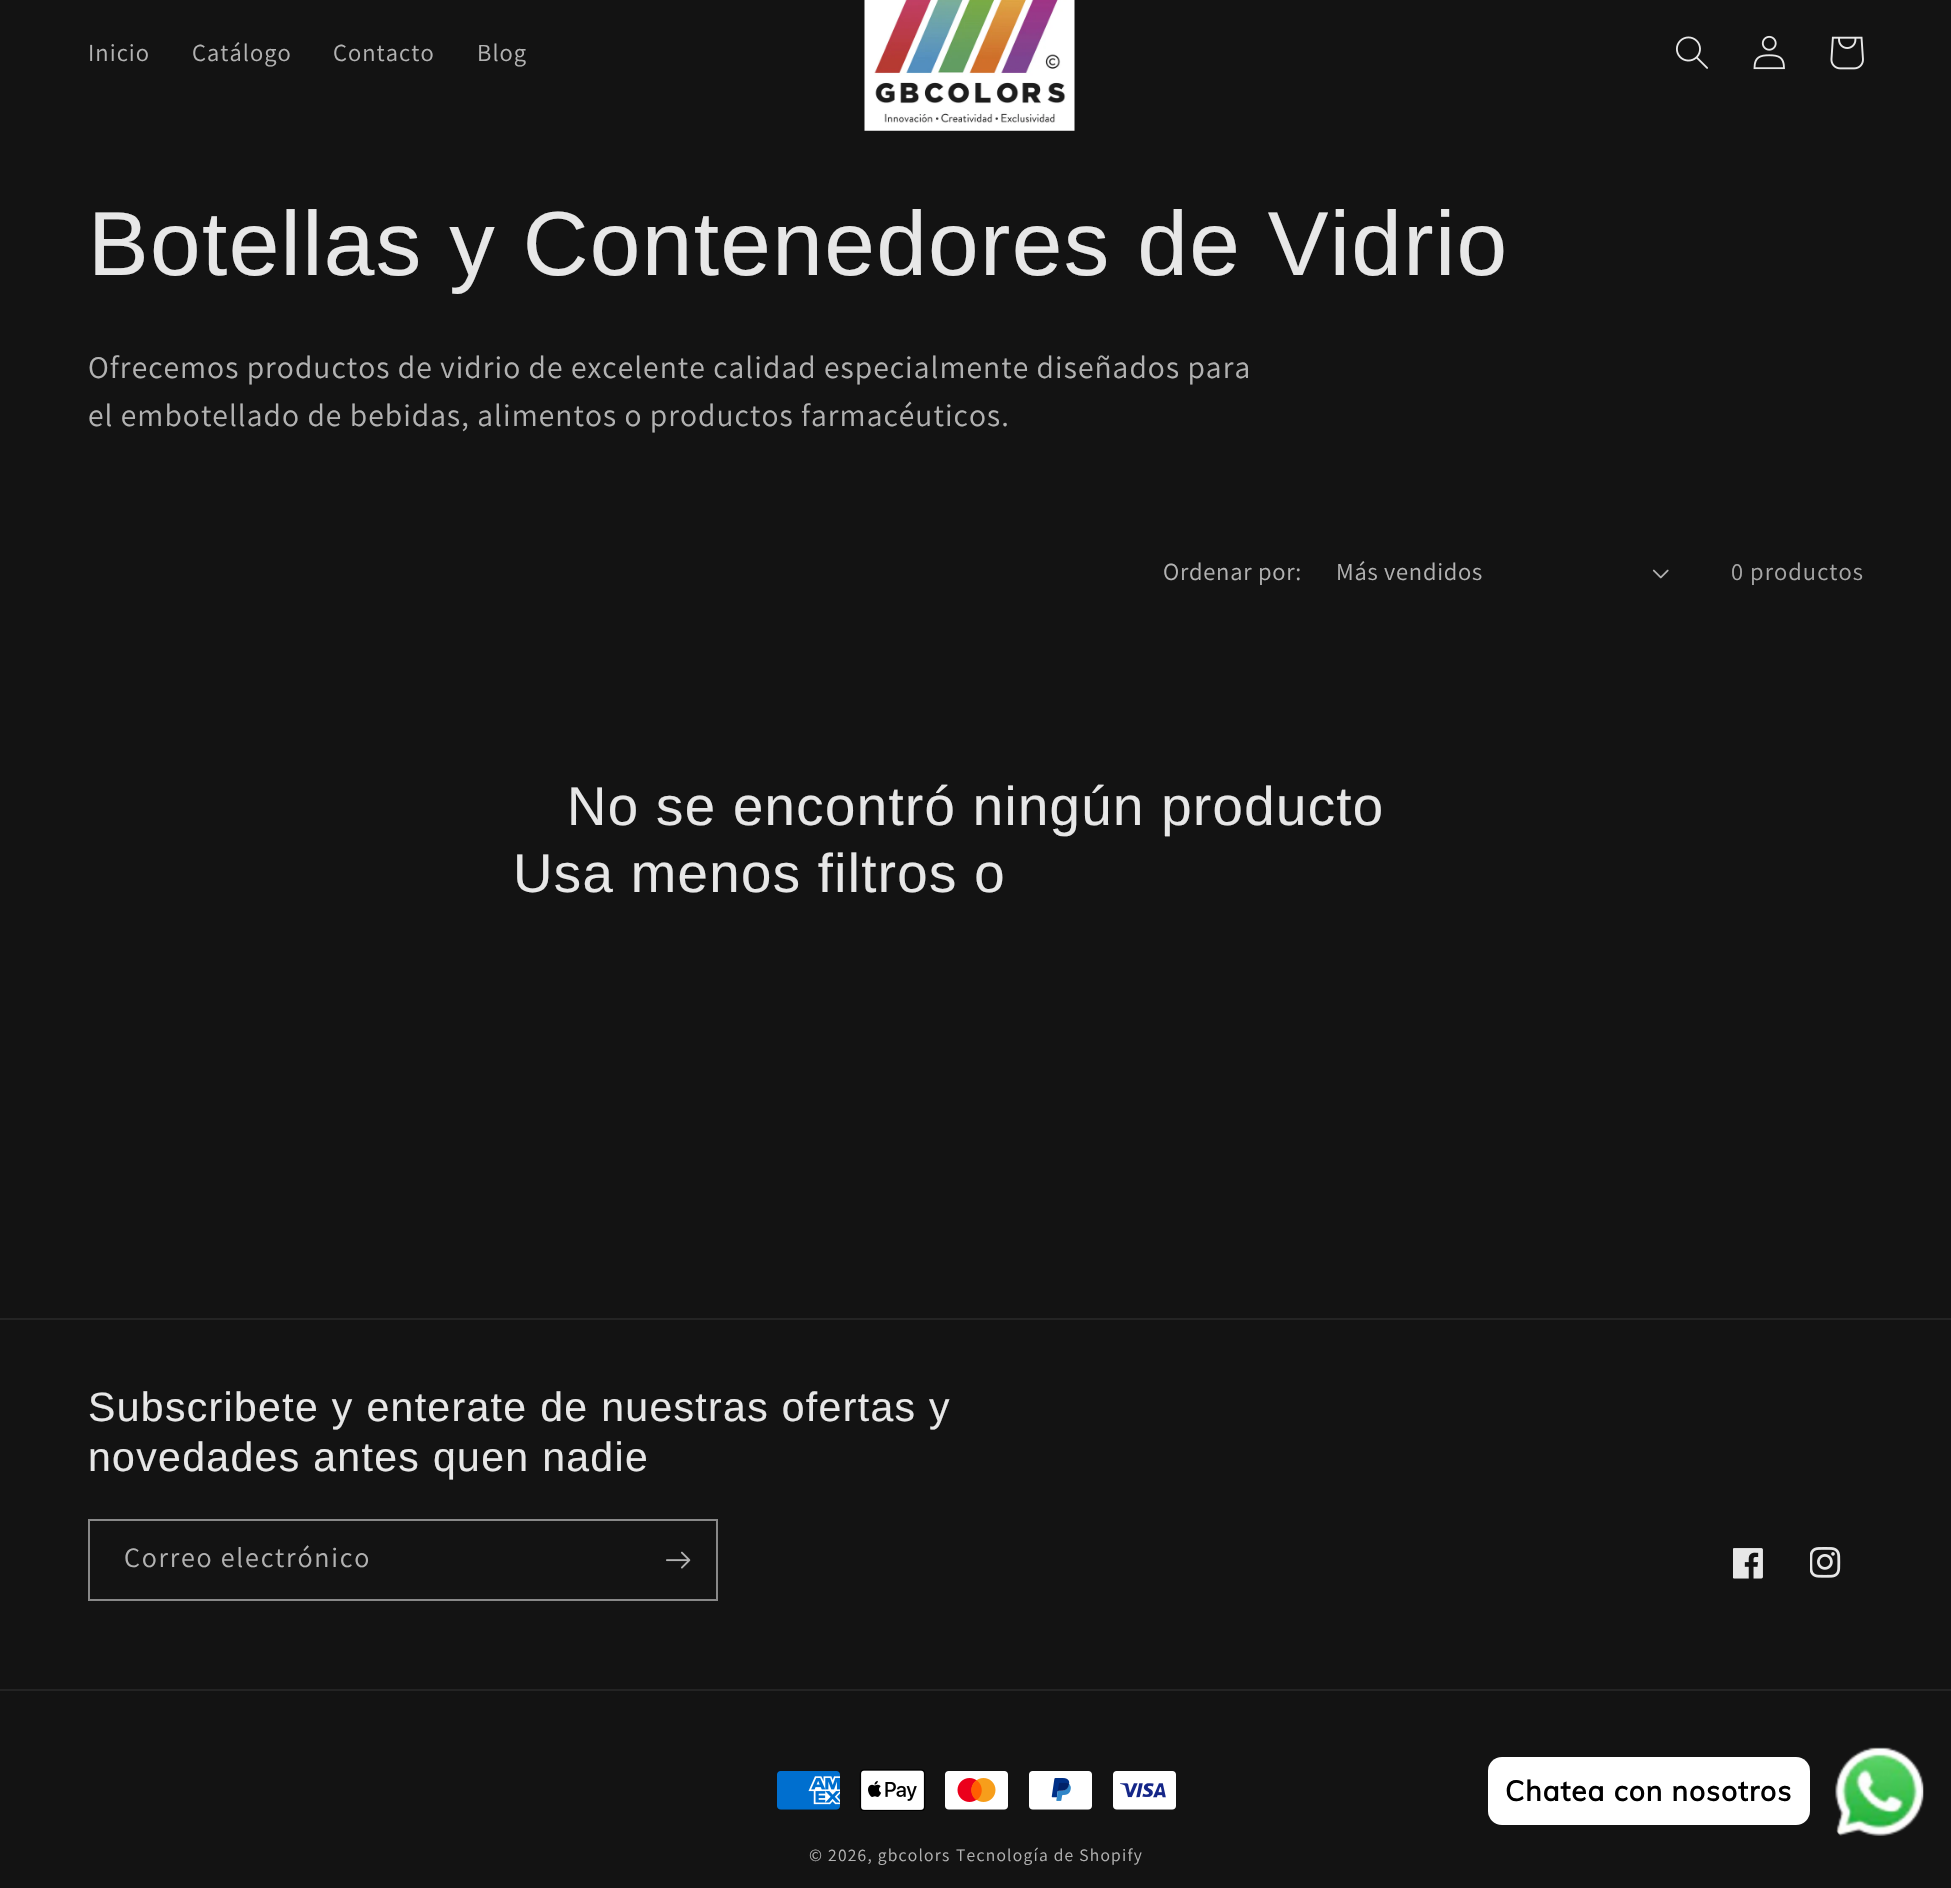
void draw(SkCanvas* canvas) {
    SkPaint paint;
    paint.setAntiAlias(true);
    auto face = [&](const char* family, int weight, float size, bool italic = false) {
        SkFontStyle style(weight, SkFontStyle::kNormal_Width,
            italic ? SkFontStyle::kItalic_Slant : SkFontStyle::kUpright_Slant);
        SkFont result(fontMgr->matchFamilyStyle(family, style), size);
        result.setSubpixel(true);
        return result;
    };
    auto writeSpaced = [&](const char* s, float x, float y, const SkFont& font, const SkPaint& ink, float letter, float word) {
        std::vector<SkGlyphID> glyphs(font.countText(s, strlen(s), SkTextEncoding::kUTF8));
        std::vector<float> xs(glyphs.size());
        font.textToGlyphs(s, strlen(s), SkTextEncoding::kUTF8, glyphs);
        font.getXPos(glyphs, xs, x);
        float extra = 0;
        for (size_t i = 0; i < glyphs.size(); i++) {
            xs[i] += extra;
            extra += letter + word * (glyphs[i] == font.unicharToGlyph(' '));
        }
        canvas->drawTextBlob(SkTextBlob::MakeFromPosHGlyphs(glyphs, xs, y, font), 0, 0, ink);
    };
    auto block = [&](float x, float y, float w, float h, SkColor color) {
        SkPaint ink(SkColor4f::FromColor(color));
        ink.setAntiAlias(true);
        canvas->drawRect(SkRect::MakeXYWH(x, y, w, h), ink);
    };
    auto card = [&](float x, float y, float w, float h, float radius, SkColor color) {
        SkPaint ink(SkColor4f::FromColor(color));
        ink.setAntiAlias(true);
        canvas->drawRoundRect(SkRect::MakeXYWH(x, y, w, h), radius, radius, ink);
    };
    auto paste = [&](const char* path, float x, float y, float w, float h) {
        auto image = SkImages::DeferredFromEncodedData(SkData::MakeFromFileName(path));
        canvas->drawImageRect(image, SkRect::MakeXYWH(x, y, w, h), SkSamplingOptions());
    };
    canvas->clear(SkColorSetRGB(19, 19, 19));
    auto kFont1 = face("Assistant", 400, 24.5f);
    paint.setColor(SkColorSetRGB(178, 178, 178));
    writeSpaced("Inicio", 88, 61, kFont1, paint, 1.05f, 0);
    writeSpaced("Catálogo", 192, 61, kFont1, paint, 1.05f, 0);
    writeSpaced("Contacto", 333, 61, kFont1, paint, 1.05f, 0);
    writeSpaced("Blog", 477, 61, kFont1, paint, 1.05f, 0);
    paste("pic1.png", 864, 0, 211, 131);
    paste("pic2.png", 1676, 36, 32, 33);
    paste("pic3.png", 1753, 35, 32, 35);
    paste("pic4.png", 1830, 36, 34, 34);
    auto kFont2 = face("Liberation Sans", 400, 91);
    paint.setColor(SkColorSetRGB(231, 231, 231));
    writeSpaced("Botellas y Contenedores de Vidrio", 88, 275, kFont2, paint, 1.35f, 0);
    auto kFont3 = face("Assistant", 400, 31.5f);
    paint.setColor(SkColorSetRGB(178, 178, 178));
    writeSpaced("Ofrecemos productos de vidrio de excelente calidad especialmente diseñados para", 88, 378, kFont3, paint, 1.05f, 0);
    writeSpaced("el embotellado de bebidas, alimentos o productos farmacéuticos.", 88, 426, kFont3, paint, 1.05f, 0);
    writeSpaced("Ordenar por:", 1163, 580, kFont1, paint, 0.75f, 0);
    writeSpaced("Más vendidos", 1336, 580, kFont1, paint, 0.75f, 0);
    paste("pic5.png", 1652, 569, 17, 10);
    paint.setColor(SkColorSetRGB(167, 167, 167));
    writeSpaced("0 productos", 1731, 580, kFont1, paint, 1.05f, 0);
    auto kFont4 = face("Liberation Sans", 400, 54.6f);
    paint.setColor(SkColorSetRGB(231, 231, 231));
    writeSpaced("No se encontró ningún producto", 567, 825, kFont4, paint, 1.35f, 0);
    writeSpaced("Usa menos filtros o", 513, 892, kFont4, paint, 1.35f, 0);
    block(0, 1318, 1951, 2, SkColorSetRGB(36, 36, 36));
    auto kFont5 = face("Liberation Sans", 400, 40.95f);
    writeSpaced("Subscribete y enterate de nuestras ofertas y", 88, 1421, kFont5, paint, 1.35f, 0);
    writeSpaced("novedades antes quen nadie", 88, 1471, kFont5, paint, 1.35f, 0);
    paint.setStyle(SkPaint::kStroke_Style);
    paint.setStrokeWidth(2);
    paint.setColor(SkColorSetRGB(136, 136, 136));
    canvas->drawRect(SkRect::MakeXYWH(89, 1520, 628, 80), paint);
    auto kFont6 = face("Assistant", 400, 28);
    paint.setStyle(SkPaint::kFill_Style);
    paint.setColor(SkColorSetRGB(178, 178, 178));
    writeSpaced("Correo electrónico", 124, 1567, kFont6, paint, 1.75f, 0);
    paste("pic6.png", 666, 1551, 25, 18);
    paste("pic7.png", 1733, 1548, 30, 31);
    paste("pic8.png", 1810, 1547, 31, 31);
    block(0, 1689, 1951, 2, SkColorSetRGB(36, 36, 36));
    paste("pic9.png", 777, 1771, 63, 39);
    paste("pic10.png", 859, 1769, 67, 42);
    paste("pic11.png", 945, 1771, 63, 39);
    paste("pic12.png", 1029, 1771, 63, 39);
    paste("pic13.png", 1113, 1771, 63, 39);
    auto kFont7 = face("Assistant", 400, 17.5f);
    writeSpaced("© 2026, gbcolors", 809, 1861, kFont7, paint, 1.25f, 0);
    writeSpaced("Tecnología de Shopify", 956, 1861, kFont7, paint, 1.25f, 0);
    paste("pic14.png", 1835, 1747, 89, 89);
    card(1488, 1757, 322, 68, 14, SK_ColorWHITE);
    auto kFont8 = face("Muli", 700, 28);
    paint.setColor(SK_ColorBLACK);
    writeSpaced("Chatea con nosotros", 1505, 1801, kFont8, paint, 1.05f, 0);
}
